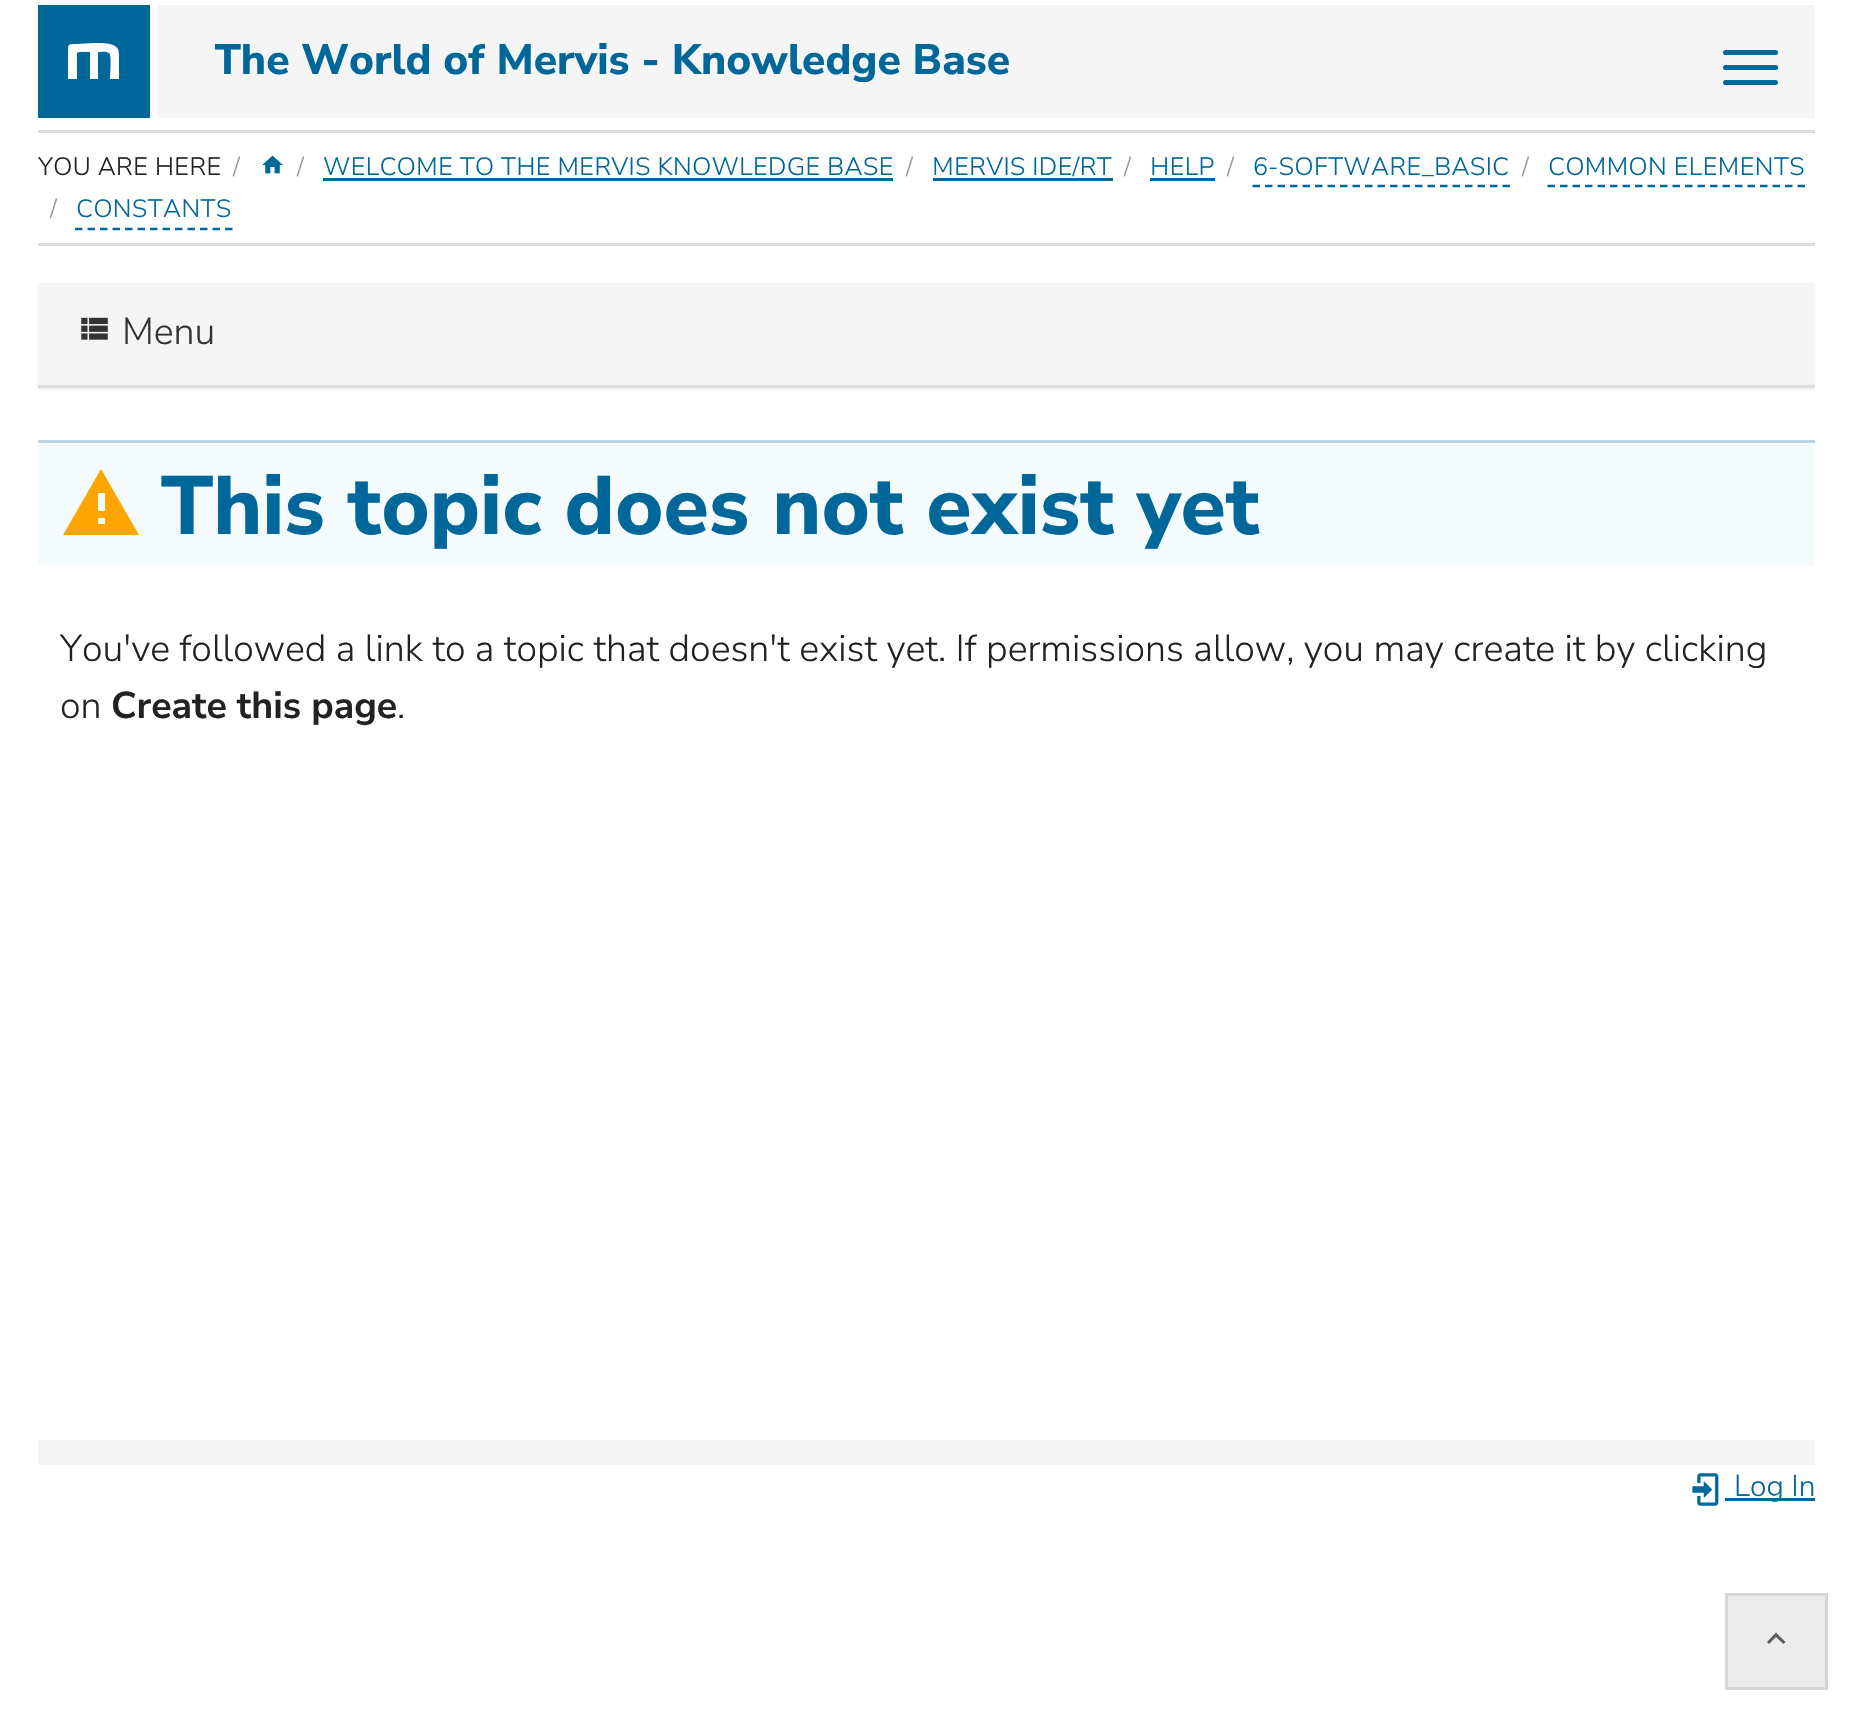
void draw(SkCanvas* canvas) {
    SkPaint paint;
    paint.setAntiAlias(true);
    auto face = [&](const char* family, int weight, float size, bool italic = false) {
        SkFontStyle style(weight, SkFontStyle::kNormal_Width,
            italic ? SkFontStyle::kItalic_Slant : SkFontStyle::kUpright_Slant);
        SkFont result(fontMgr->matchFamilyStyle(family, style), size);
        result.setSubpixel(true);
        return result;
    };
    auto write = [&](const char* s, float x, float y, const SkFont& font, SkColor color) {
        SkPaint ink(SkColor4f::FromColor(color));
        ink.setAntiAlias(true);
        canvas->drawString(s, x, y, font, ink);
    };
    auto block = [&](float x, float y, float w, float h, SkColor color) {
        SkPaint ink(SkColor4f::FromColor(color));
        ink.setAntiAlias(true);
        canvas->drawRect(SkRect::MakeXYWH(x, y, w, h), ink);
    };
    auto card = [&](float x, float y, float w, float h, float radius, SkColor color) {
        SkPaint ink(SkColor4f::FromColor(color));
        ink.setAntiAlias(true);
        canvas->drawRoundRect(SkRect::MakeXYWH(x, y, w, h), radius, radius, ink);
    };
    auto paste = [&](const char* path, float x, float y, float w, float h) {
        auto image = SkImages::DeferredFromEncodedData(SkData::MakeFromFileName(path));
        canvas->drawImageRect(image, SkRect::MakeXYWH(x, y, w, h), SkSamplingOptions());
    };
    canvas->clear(SK_ColorWHITE);
    block(158, 5, 1657, 113, SkColorSetRGB(245, 245, 245));
    block(38, 5, 112, 113, SkColorSetRGB(0, 103, 154));
    paint.setColor(SK_ColorWHITE);
    canvas->drawPath(SkPathBuilder().moveTo(119, 79).lineTo(110, 79).cubicTo(110, 76, 112, 55, 109, 53).cubicTo(106, 51, 101, 52, 98, 52).lineTo(98, 79).lineTo(90, 79).lineTo(90, 52).lineTo(81, 52).cubicTo(76, 52, 77, 53, 77, 57).lineTo(77, 79).lineTo(68, 79).lineTo(68, 52).cubicTo(68, 44, 68, 44, 76, 44).lineTo(94, 43).cubicTo(100, 43, 114, 42, 118, 49).cubicTo(119, 52, 119, 55, 119, 58).lineTo(119, 79).detach(), paint);
    canvas->save();
    canvas->clipRect(SkRect::MakeXYWH(215, 30, 795, 63));
    auto kFont1 = face("Nunito Sans", 800, 42.5f);
    write("The World of Mervis - Knowledge Base", 214, 74, kFont1, SkColorSetRGB(0, 103, 154));
    canvas->restore();
    card(1723, 50, 55, 5, 2.5f, SkColorSetRGB(0, 103, 154));
    card(1723, 65, 55, 5, 2.5f, SkColorSetRGB(0, 103, 154));
    card(1723, 80, 55, 5, 2.5f, SkColorSetRGB(0, 103, 154));
    block(38, 130, 1777, 3, SkColorSetRGB(221, 221, 221));
    auto kFont2 = face("Nunito Sans", 300, 25);
    write("YOU ARE HERE", 38, 175, kFont2, SkColorSetRGB(34, 34, 34));
    write("/", 233, 175, kFont2, SkColorSetRGB(153, 153, 153));
    paste("pic1.png", 262, 155, 21, 19);
    write("/", 297, 175, kFont2, SkColorSetRGB(153, 153, 153));
    write("WELCOME TO THE MERVIS KNOWLEDGE BASE", 323, 175, kFont2, SkColorSetRGB(0, 103, 154));
    block(323, 178, 570, 3, SkColorSetRGB(0, 103, 154));
    write("/", 906, 175, kFont2, SkColorSetRGB(153, 153, 153));
    write("MERVIS IDE/RT", 932, 175, kFont2, SkColorSetRGB(0, 103, 154));
    block(933, 178, 180, 3, SkColorSetRGB(0, 103, 154));
    write("/", 1124, 175, kFont2, SkColorSetRGB(153, 153, 153));
    write("HELP", 1150, 175, kFont2, SkColorSetRGB(0, 103, 154));
    block(1150, 178, 65, 3, SkColorSetRGB(0, 103, 154));
    write("/", 1227, 175, kFont2, SkColorSetRGB(153, 153, 153));
    write("6-SOFTWARE_BASIC", 1253, 175, kFont2, SkColorSetRGB(0, 103, 154));
    paint.setStyle(SkPaint::kStroke_Style);
    paint.setStrokeWidth(2.5f);
    paint.setColor(SkColorSetRGB(0, 103, 154));
    paint.setPathEffect(SkDashPathEffect::Make({{7.5f, 5}}, 0));
    canvas->drawPath(SkPathBuilder().moveTo(1252.5f, 186).lineTo(1510, 186).detach(), paint);
    paint.setPathEffect(nullptr);
    write("/", 1522, 175, kFont2, SkColorSetRGB(153, 153, 153));
    write("COMMON ELEMENTS", 1548, 175, kFont2, SkColorSetRGB(0, 103, 154));
    paint.setPathEffect(SkDashPathEffect::Make({{7.5f, 5}}, 0));
    canvas->drawPath(SkPathBuilder().moveTo(1547.5f, 186).lineTo(1805, 186).detach(), paint);
    paint.setPathEffect(nullptr);
    write("/", 50, 217, kFont2, SkColorSetRGB(153, 153, 153));
    write("CONSTANTS", 76, 217, kFont2, SkColorSetRGB(0, 103, 154));
    paint.setPathEffect(SkDashPathEffect::Make({{7.5f, 5}}, 0));
    canvas->drawPath(SkPathBuilder().moveTo(75, 229).lineTo(232.5f, 229).detach(), paint);
    paint.setPathEffect(nullptr);
    block(38, 243, 1777, 3, SkColorSetRGB(221, 221, 221));
    paint.setStyle(SkPaint::kFill_Style);
    paint.setColor(SkColorSetARGB(13, 0, 0, 0));
    paint.setMaskFilter(SkMaskFilter::MakeBlur(kNormal_SkBlurStyle, 1));
    canvas->drawRect(SkRect::MakeXYWH(38, 285, 1777, 105), paint);
    paint.setMaskFilter(nullptr);
    block(38, 283, 1777, 102, SkColorSetRGB(245, 245, 245));
    block(38, 385, 1777, 3, SkColorSetRGB(221, 221, 221));
    paste("pic2.png", 81, 317, 27, 23);
    auto kFont3 = face("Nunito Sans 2", 300, 37.5f);
    write("Menu", 122, 344, kFont3, SkColorSetRGB(51, 51, 51));
    block(38, 443, 1777, 122, SkColorSetRGB(245, 250, 252));
    block(38, 440, 1777, 3, SkColorSetRGB(184, 213, 228));
    paint.setColor(SkColorSetRGB(255, 165, 0));
    canvas->drawPath(SkPathBuilder().moveTo(105, 511).lineTo(98, 511).lineTo(98, 493).lineTo(105, 493).moveTo(105, 524).lineTo(98, 524).lineTo(98, 518).lineTo(105, 518).moveTo(63, 535).lineTo(139, 535).lineTo(101, 469).close().detach(), paint);
    auto kFont4 = face("Nunito Sans", 800, 82.5f);
    write("This topic does not exist yet", 161, 534, kFont4, SkColorSetRGB(0, 103, 154));
    write("You've followed a link to a topic that doesn't exist yet. If permissions allow, you may create it by clicking", 60, 661, kFont3, SkColorSetRGB(34, 34, 34));
    write("on", 60, 718, kFont3, SkColorSetRGB(34, 34, 34));
    auto kFont5 = face("Nunito Sans", 700, 37.5f);
    write("Create this page", 111, 718, kFont5, SkColorSetRGB(34, 34, 34));
    write(".", 397, 718, kFont3, SkColorSetRGB(34, 34, 34));
    block(38, 1440, 1777, 25, SkColorSetRGB(245, 245, 245));
    paste("pic3.png", 1692, 1473, 27, 33);
    block(1725, 1498, 90, 3, SkColorSetRGB(0, 103, 154));
    auto kFont6 = face("Nunito Sans 2", 300, 30);
    write("Log In", 1734, 1496, kFont6, SkColorSetRGB(0, 103, 154));
    paint.setColor(SkColorSetRGB(236, 236, 236));
    canvas->drawRect(SkRect::MakeXYWH(1726.5f, 1594.5f, 100, 94), paint);
    paint.setStyle(SkPaint::kStroke_Style);
    paint.setStrokeWidth(3);
    paint.setColor(SkColorSetRGB(214, 214, 214));
    canvas->drawRect(SkRect::MakeXYWH(1726.5f, 1594.5f, 100, 94), paint);
    paint.setStyle(SkPaint::kFill_Style);
    paint.setColor(SkColorSetRGB(92, 92, 92));
    canvas->drawPath(SkPathBuilder().moveTo(1769, 1644).lineTo(1776, 1637).lineTo(1783.5f, 1644).lineTo(1785.5f, 1642).lineTo(1776, 1632.5f).lineTo(1767, 1642).close().detach(), paint);
}
